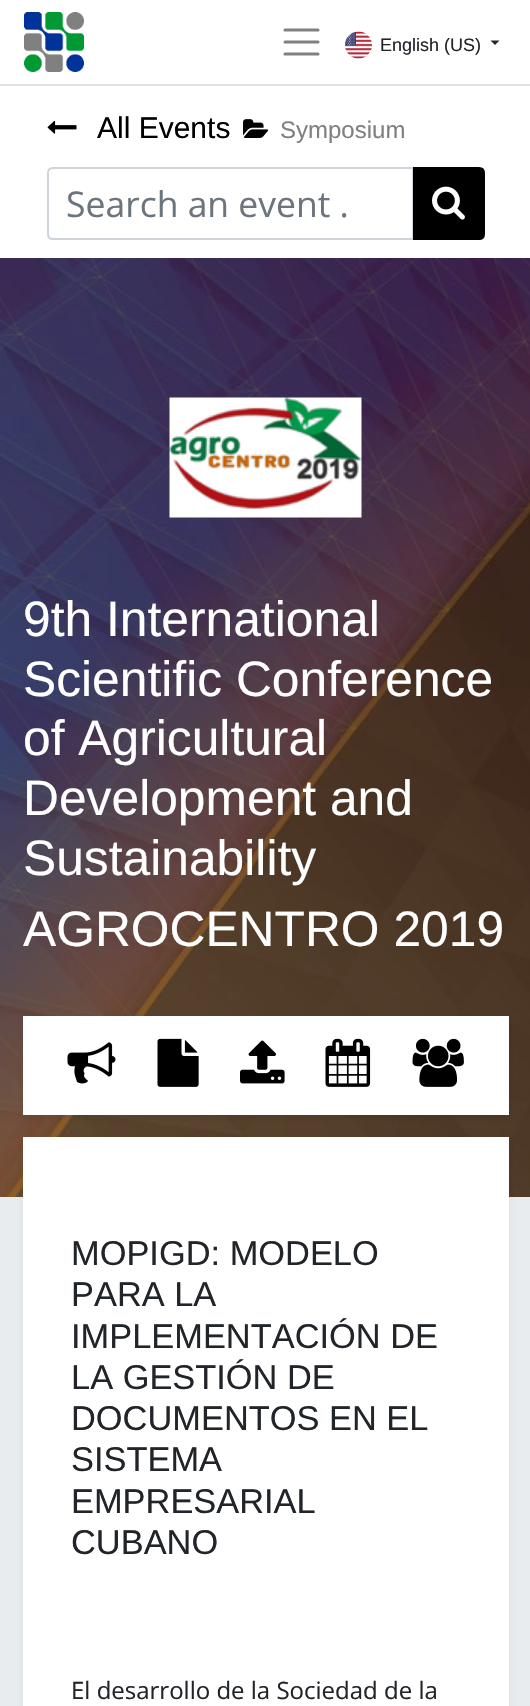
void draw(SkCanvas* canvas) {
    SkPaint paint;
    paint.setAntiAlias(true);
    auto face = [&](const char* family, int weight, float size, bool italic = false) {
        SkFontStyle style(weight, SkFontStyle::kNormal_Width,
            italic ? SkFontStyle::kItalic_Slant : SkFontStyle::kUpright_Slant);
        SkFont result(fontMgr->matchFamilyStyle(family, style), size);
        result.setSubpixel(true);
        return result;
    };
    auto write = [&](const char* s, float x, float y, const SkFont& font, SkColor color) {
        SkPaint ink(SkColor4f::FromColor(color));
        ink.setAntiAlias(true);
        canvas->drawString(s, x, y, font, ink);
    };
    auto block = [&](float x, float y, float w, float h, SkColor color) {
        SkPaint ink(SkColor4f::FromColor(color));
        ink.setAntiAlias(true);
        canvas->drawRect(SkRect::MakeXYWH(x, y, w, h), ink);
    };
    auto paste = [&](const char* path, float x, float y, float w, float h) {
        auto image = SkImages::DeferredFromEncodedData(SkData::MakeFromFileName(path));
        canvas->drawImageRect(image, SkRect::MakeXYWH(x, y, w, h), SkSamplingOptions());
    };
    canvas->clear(SK_ColorWHITE);
    paste("pic1.png", 24, 12, 60, 60);
    paint.setStyle(SkPaint::kStroke_Style);
    paint.setStrokeWidth(3);
    paint.setStrokeCap(SkPaint::kRound_Cap);
    paint.setColor(SkColorSetRGB(128, 128, 128));
    canvas->drawPath(SkPathBuilder().moveTo(285, 30).lineTo(318, 30).moveTo(285, 42).lineTo(318, 42).moveTo(285, 54).lineTo(318, 54).detach(), paint);
    paste("pic2.png", 345, 31, 27, 28);
    auto kFont1 = face("Liberation Sans", 400, 18);
    write("English (US)", 380, 51, kFont1, SkColorSetRGB(33, 37, 41));
    paint.setStyle(SkPaint::kFill_Style);
    paint.setColor(SkColorSetRGB(33, 37, 41));
    canvas->drawPath(SkPathBuilder().moveTo(490.5f, 40.5f).lineTo(499.5f, 40.5f).lineTo(495, 45).close().detach(), paint);
    block(0, 84, 530, 2, SkColorSetRGB(222, 226, 230));
    paste("pic3.png", 47, 120, 30, 14);
    auto kFont2 = face("Liberation Sans", 400, 30);
    write("All Events", 97, 138, kFont2, SK_ColorBLACK);
    paste("pic4.png", 243, 119, 26, 19);
    auto kFont3 = face("Liberation Sans", 400, 24);
    write("Symposium", 280, 138, kFont3, SkColorSetRGB(128, 128, 128));
    paint.setStyle(SkPaint::kStroke_Style);
    paint.setStrokeWidth(2);
    paint.setStrokeCap(SkPaint::kButt_Cap);
    paint.setColor(SkColorSetRGB(206, 212, 218));
    canvas->drawPath(SkPathBuilder().moveTo(53, 168).lineTo(413, 168).lineTo(413, 239).lineTo(53, 239).cubicTo(50, 239, 48, 237, 48, 234).lineTo(48, 173).cubicTo(48, 170, 50, 168, 53, 168).close().detach(), paint);
    auto kFont4 = face("Open Sans", 400, 35.5f);
    write("Search an event .", 66, 217, kFont4, SkColorSetRGB(108, 117, 125));
    paint.setStyle(SkPaint::kFill_Style);
    paint.setColor(SK_ColorBLACK);
    canvas->drawPath(SkPathBuilder().moveTo(414, 168).lineTo(479, 168).cubicTo(482, 168, 484, 170, 484, 173).lineTo(484, 234).cubicTo(484, 237, 482, 239, 479, 239).lineTo(414, 239).close().detach(), paint);
    paint.setStyle(SkPaint::kStroke_Style);
    canvas->drawPath(SkPathBuilder().moveTo(414, 168).lineTo(479, 168).cubicTo(482, 168, 484, 170, 484, 173).lineTo(484, 234).cubicTo(484, 237, 482, 239, 479, 239).lineTo(414, 239).close().detach(), paint);
    paste("pic5.png", 432, 186, 33, 34);
    paste("pic6.png", 0, 258, 530, 939);
    paste("pic7.png", 169, 397, 193, 121);
    auto kFont5 = face("Liberation Sans", 400, 49.75f);
    write("9th International", 23, 636, kFont5, SK_ColorWHITE);
    write("Scientific Conference", 23, 696, kFont5, SK_ColorWHITE);
    write("of Agricultural", 23, 755, kFont5, SK_ColorWHITE);
    write("Development and", 23, 815, kFont5, SK_ColorWHITE);
    write("Sustainability", 23, 875, kFont5, SK_ColorWHITE);
    write("AGROCENTRO 2019", 23, 946, kFont5, SK_ColorWHITE);
    paint.setStyle(SkPaint::kFill_Style);
    paint.setColor(SkColorSetARGB(18, 0, 0, 0));
    paint.setMaskFilter(SkMaskFilter::MakeBlur(kNormal_SkBlurStyle, 3));
    canvas->drawRect(SkRect::MakeXYWH(23, 1019, 486, 99), paint);
    paint.setMaskFilter(nullptr);
    block(23, 1016, 486, 99, SK_ColorWHITE);
    paste("pic8.png", 67, 1042, 49, 42);
    paste("pic9.png", 157, 1038, 42, 49);
    paste("pic10.png", 240, 1040, 45, 44);
    paste("pic11.png", 325, 1038, 46, 49);
    paste("pic12.png", 412, 1038, 52, 49);
    block(0, 1197, 530, 509, SkColorSetRGB(233, 236, 239));
    paint.setMaskFilter(SkMaskFilter::MakeBlur(kNormal_SkBlurStyle, 3));
    canvas->drawRect(SkRect::MakeXYWH(23, 1140, 486, 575), paint);
    paint.setMaskFilter(nullptr);
    block(23, 1137, 486, 569, SK_ColorWHITE);
    auto kFont6 = face("Liberation Sans", 400, 34.4f);
    write("MOPIGD: MODELO", 71, 1265, kFont6, SkColorSetRGB(33, 37, 41));
    write("PARA LA", 71, 1306, kFont6, SkColorSetRGB(33, 37, 41));
    write("IMPLEMENTACIÓN DE", 71, 1348, kFont6, SkColorSetRGB(33, 37, 41));
    write("LA GESTIÓN DE", 71, 1389, kFont6, SkColorSetRGB(33, 37, 41));
    write("DOCUMENTOS EN EL", 71, 1430, kFont6, SkColorSetRGB(33, 37, 41));
    write("SISTEMA", 71, 1471, kFont6, SkColorSetRGB(33, 37, 41));
    write("EMPRESARIAL", 71, 1513, kFont6, SkColorSetRGB(33, 37, 41));
    write("CUBANO", 71, 1554, kFont6, SkColorSetRGB(33, 37, 41));
    auto kFont7 = face("Open Sans", 400, 24);
    write("El desarrollo de la Sociedad de la", 71, 1699, kFont7, SkColorSetRGB(33, 37, 41));
}
